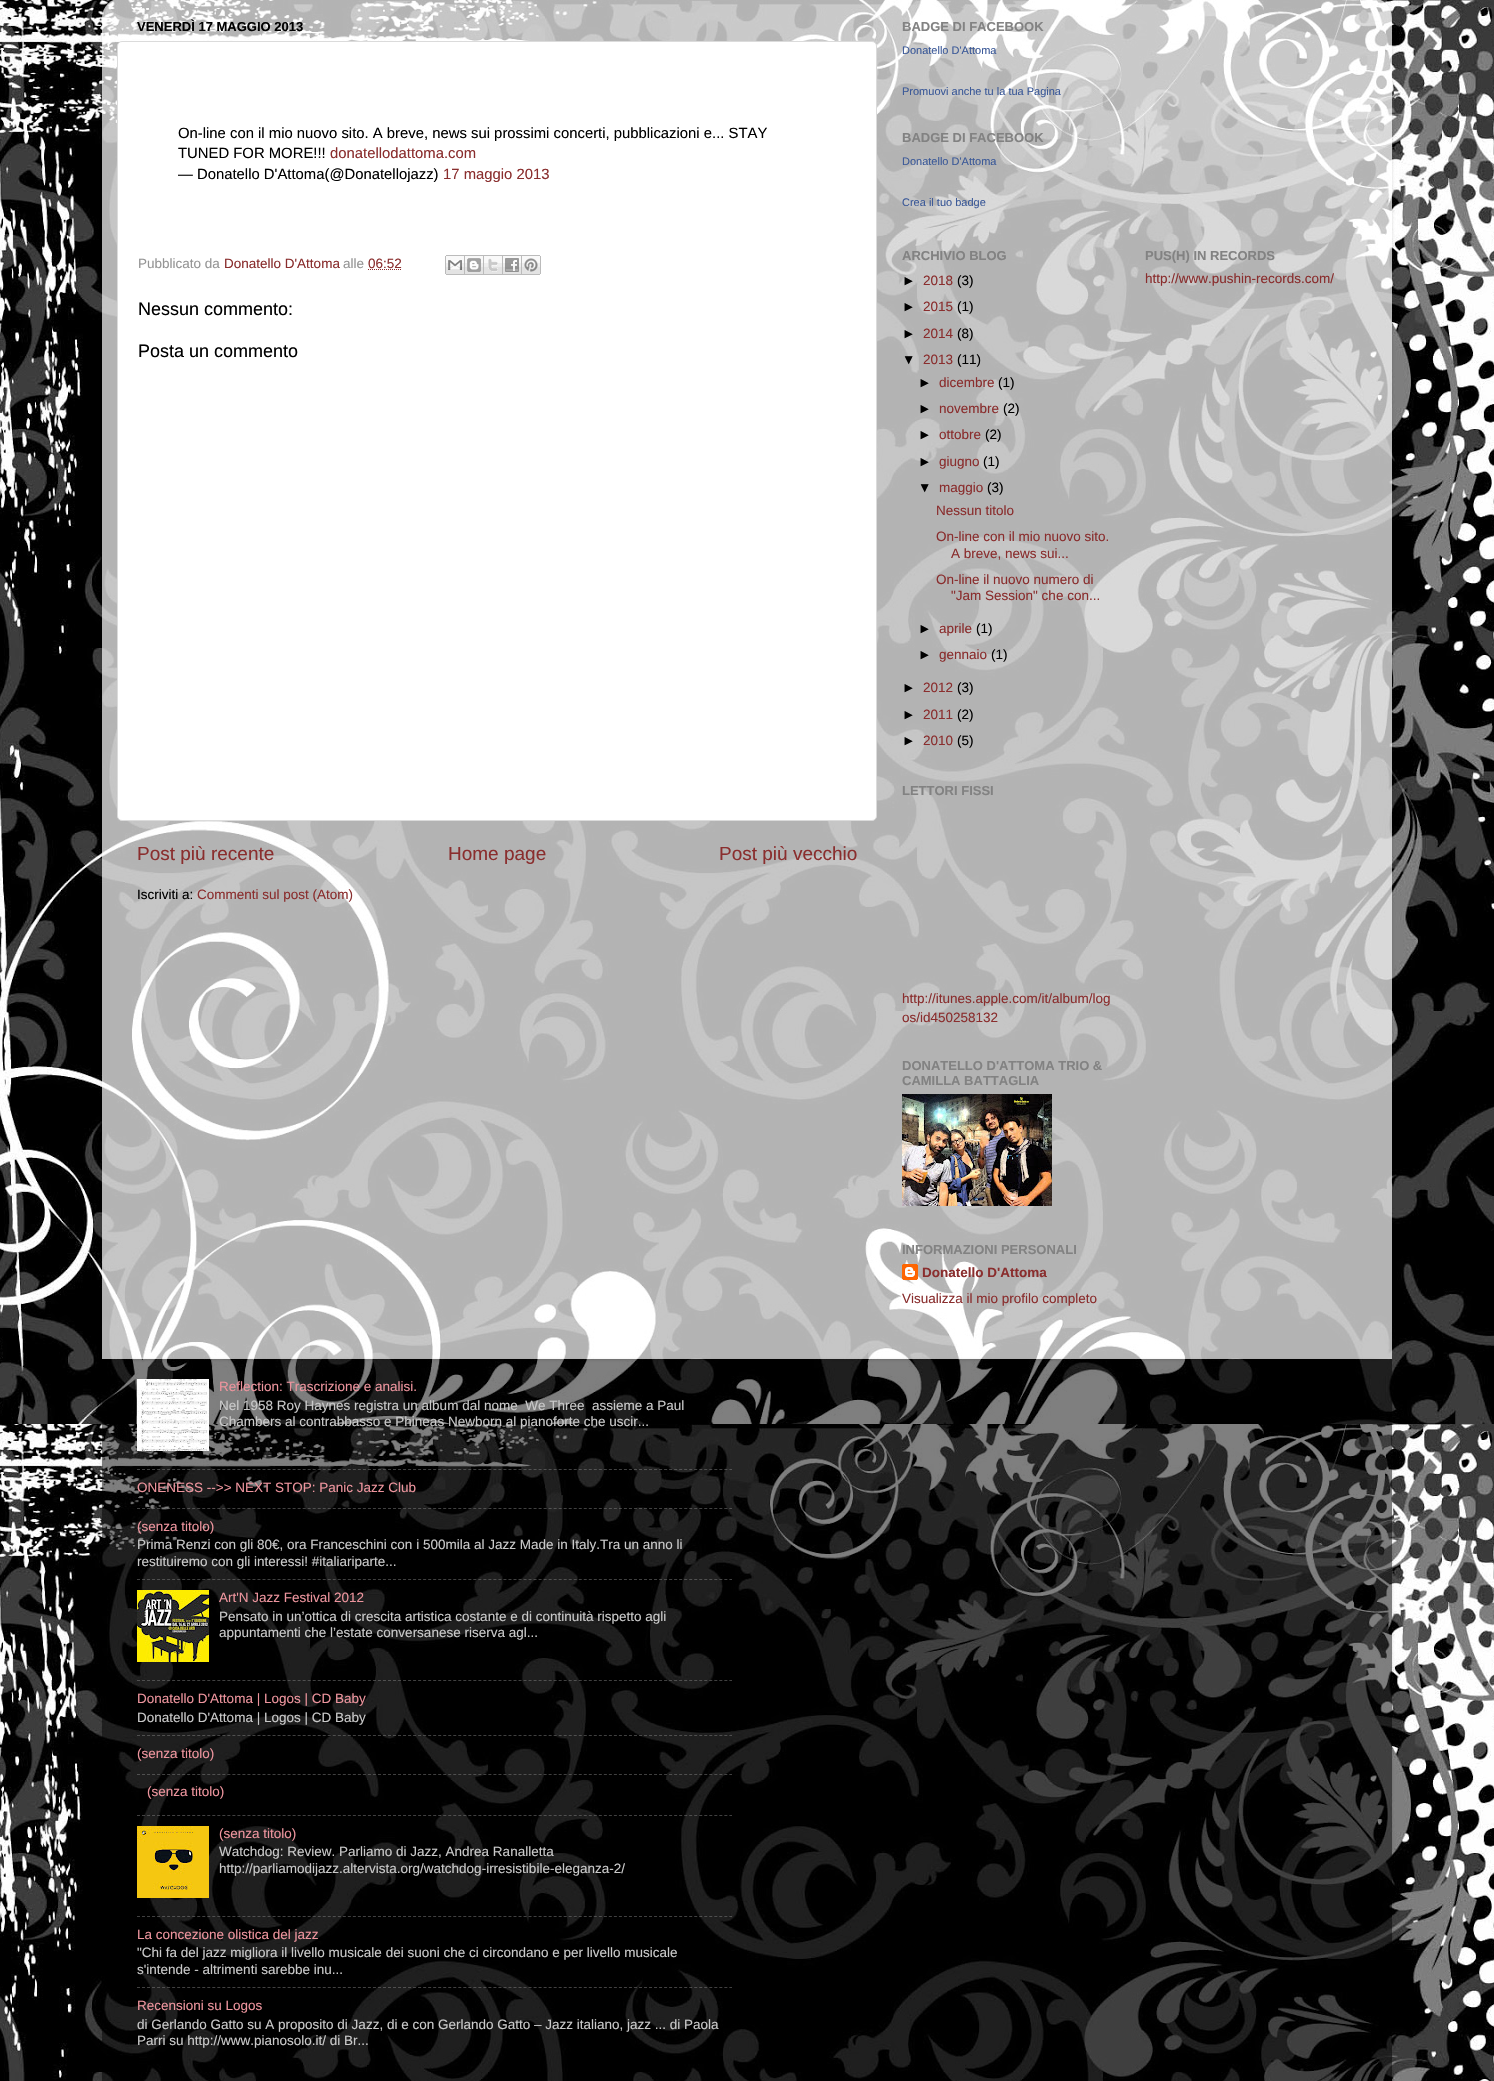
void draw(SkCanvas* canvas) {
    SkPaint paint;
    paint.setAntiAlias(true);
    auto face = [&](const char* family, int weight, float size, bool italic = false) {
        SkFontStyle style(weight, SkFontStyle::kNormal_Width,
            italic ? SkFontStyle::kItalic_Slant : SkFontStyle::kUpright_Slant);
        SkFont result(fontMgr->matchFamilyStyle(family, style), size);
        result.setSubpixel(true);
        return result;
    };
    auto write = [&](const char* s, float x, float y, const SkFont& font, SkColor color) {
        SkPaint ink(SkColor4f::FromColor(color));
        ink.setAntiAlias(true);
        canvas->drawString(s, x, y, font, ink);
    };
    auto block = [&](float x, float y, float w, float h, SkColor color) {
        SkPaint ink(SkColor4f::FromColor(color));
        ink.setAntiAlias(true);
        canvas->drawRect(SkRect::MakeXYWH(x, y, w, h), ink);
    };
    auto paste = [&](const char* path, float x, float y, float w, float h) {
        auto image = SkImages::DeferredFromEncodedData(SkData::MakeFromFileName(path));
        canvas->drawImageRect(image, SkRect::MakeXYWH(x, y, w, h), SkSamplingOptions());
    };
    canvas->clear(SK_ColorWHITE);
    paste("pic1.png", 0, 0, 1494, 2081);
    canvas->save();
    canvas->clipPath(SkPathBuilder(SkPathFillType::kEvenOdd).moveTo(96, 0).lineTo(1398, 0).lineTo(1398, 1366).lineTo(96, 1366).close().moveTo(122, -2).lineTo(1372, -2).cubicTo(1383, -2, 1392, 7, 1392, 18).lineTo(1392, 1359).lineTo(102, 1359).lineTo(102, 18).cubicTo(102, 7, 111, -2, 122, -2).close().detach(), true);
    paint.setColor(SkColorSetARGB(38, 0, 0, 0));
    paint.setMaskFilter(SkMaskFilter::MakeBlur(kNormal_SkBlurStyle, 1.5f));
    canvas->drawRoundRect(SkRect::MakeXYWH(102, -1, 1290, 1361), 20, 20, paint);
    paint.setMaskFilter(nullptr);
    canvas->restore();
    paste("pic2.png", 102, 0, 1290, 1359);
    auto kFont1 = face("Liberation Sans", 700, 13);
    write("VENERDÌ 17 MAGGIO 2013", 137, 31, kFont1, SK_ColorBLACK);
    paint.setColor(SK_ColorWHITE);
    canvas->drawRoundRect(SkRect::MakeXYWH(117.5f, 41.5f, 759, 779), 4.5f, 4.5f, paint);
    paint.setStyle(SkPaint::kStroke_Style);
    paint.setStrokeWidth(1);
    paint.setColor(SkColorSetRGB(219, 219, 219));
    canvas->drawRoundRect(SkRect::MakeXYWH(117.5f, 41.5f, 759, 779), 4.5f, 4.5f, paint);
    auto kFont2 = face("Liberation Sans", 400, 14.85f);
    write("On-line con il mio nuovo sito. A breve, news sui prossimi concerti, pubblicazioni e... STAY", 178, 138, kFont2, SK_ColorBLACK);
    write("TUNED FOR MORE!!!", 178, 158, kFont2, SK_ColorBLACK);
    write("donatellodattoma.com", 330, 158, kFont2, SkColorSetRGB(138, 46, 46));
    write("— Donatello D'Attoma(@Donatellojazz)", 178, 179, kFont2, SK_ColorBLACK);
    write("17 maggio 2013", 443, 179, kFont2, SkColorSetRGB(138, 46, 46));
    auto kFont3 = face("Liberation Sans", 400, 13.5f);
    write("Pubblicato da", 138, 268, kFont3, SkColorSetRGB(149, 149, 149));
    write("Donatello D'Attoma", 224, 268, kFont3, SkColorSetRGB(138, 46, 46));
    write("alle", 343, 268, kFont3, SkColorSetRGB(149, 149, 149));
    write("06:52", 368, 268, kFont3, SkColorSetRGB(138, 46, 46));
    paint.setColor(SkColorSetRGB(138, 46, 46));
    paint.setPathEffect(SkDashPathEffect::Make({{1, 1}}, 0));
    canvas->drawPath(SkPathBuilder().moveTo(368, 269.5f).lineTo(402, 269.5f).detach(), paint);
    paint.setPathEffect(nullptr);
    paste("pic3.png", 445, 255, 20, 20);
    paste("pic4.png", 465, 255, 19, 20);
    paste("pic5.png", 484, 255, 19, 20);
    paste("pic6.png", 503, 255, 19, 20);
    paste("pic7.png", 522, 255, 19, 20);
    auto kFont4 = face("Liberation Sans", 400, 18);
    write("Nessun commento:", 138, 315, kFont4, SK_ColorBLACK);
    write("Posta un commento", 138, 357, kFont4, SK_ColorBLACK);
    auto kFont5 = face("Liberation Sans", 400, 19);
    write("Post più recente", 137, 860, kFont5, SkColorSetRGB(138, 46, 46));
    write("Home page", 448, 860, kFont5, SkColorSetRGB(138, 46, 46));
    write("Post più vecchio", 719, 860, kFont5, SkColorSetRGB(138, 46, 46));
    write("Iscriviti a:", 137, 899, kFont3, SK_ColorBLACK);
    write("Commenti sul post (Atom)", 197, 899, kFont3, SkColorSetRGB(138, 46, 46));
    write("BADGE DI FACEBOOK", 902, 31, kFont1, SkColorSetRGB(130, 130, 130));
    auto kFont6 = face("Liberation Sans", 400, 11);
    write("Donatello D'Attoma", 902, 54, kFont6, SkColorSetRGB(59, 89, 152));
    write("Promuovi anche tu la tua Pagina", 902, 95, kFont6, SkColorSetRGB(59, 89, 152));
    write("BADGE DI FACEBOOK", 902, 142, kFont1, SkColorSetRGB(130, 130, 130));
    write("Donatello D'Attoma", 902, 165, kFont6, SkColorSetRGB(59, 89, 152));
    write("Crea il tuo badge", 902, 206, kFont6, SkColorSetRGB(59, 89, 152));
    write("ARCHIVIO BLOG", 902, 260, kFont1, SkColorSetRGB(130, 130, 130));
    write("►", 902, 285, kFont3, SK_ColorBLACK);
    write("2018", 923, 285, kFont3, SkColorSetRGB(138, 46, 46));
    write("(3)", 957, 285, kFont3, SK_ColorBLACK);
    write("►", 902, 311, kFont3, SK_ColorBLACK);
    write("2015", 923, 311, kFont3, SkColorSetRGB(138, 46, 46));
    write("(1)", 957, 311, kFont3, SK_ColorBLACK);
    write("►", 902, 338, kFont3, SK_ColorBLACK);
    write("2014", 923, 338, kFont3, SkColorSetRGB(138, 46, 46));
    write("(8)", 957, 338, kFont3, SK_ColorBLACK);
    write("▼", 902, 364, kFont3, SK_ColorBLACK);
    write("2013", 923, 364, kFont3, SkColorSetRGB(138, 46, 46));
    write("(11)", 957, 364, kFont3, SK_ColorBLACK);
    write("►", 918, 387, kFont3, SK_ColorBLACK);
    write("dicembre", 939, 387, kFont3, SkColorSetRGB(138, 46, 46));
    write("(1)", 998, 387, kFont3, SK_ColorBLACK);
    write("►", 918, 413, kFont3, SK_ColorBLACK);
    write("novembre", 939, 413, kFont3, SkColorSetRGB(138, 46, 46));
    write("(2)", 1003, 413, kFont3, SK_ColorBLACK);
    write("►", 918, 439, kFont3, SK_ColorBLACK);
    write("ottobre", 939, 439, kFont3, SkColorSetRGB(138, 46, 46));
    write("(2)", 985, 439, kFont3, SK_ColorBLACK);
    write("►", 918, 466, kFont3, SK_ColorBLACK);
    write("giugno", 939, 466, kFont3, SkColorSetRGB(138, 46, 46));
    write("(1)", 983, 466, kFont3, SK_ColorBLACK);
    write("▼", 918, 492, kFont3, SK_ColorBLACK);
    write("maggio", 939, 492, kFont3, SkColorSetRGB(138, 46, 46));
    write("(3)", 987, 492, kFont3, SK_ColorBLACK);
    write("Nessun titolo", 936, 515, kFont3, SkColorSetRGB(138, 46, 46));
    write("On-line con il mio nuovo sito.", 936, 541, kFont3, SkColorSetRGB(138, 46, 46));
    write("A breve, news sui...", 951, 558, kFont3, SkColorSetRGB(138, 46, 46));
    write("On-line il nuovo numero di", 936, 584, kFont3, SkColorSetRGB(138, 46, 46));
    write("\"Jam Session\" che con...", 951, 600, kFont3, SkColorSetRGB(138, 46, 46));
    write("►", 918, 633, kFont3, SK_ColorBLACK);
    write("aprile", 939, 633, kFont3, SkColorSetRGB(138, 46, 46));
    write("(1)", 976, 633, kFont3, SK_ColorBLACK);
    write("►", 918, 659, kFont3, SK_ColorBLACK);
    write("gennaio", 939, 659, kFont3, SkColorSetRGB(138, 46, 46));
    write("(1)", 991, 659, kFont3, SK_ColorBLACK);
    write("►", 902, 692, kFont3, SK_ColorBLACK);
    write("2012", 923, 692, kFont3, SkColorSetRGB(138, 46, 46));
    write("(3)", 957, 692, kFont3, SK_ColorBLACK);
    write("►", 902, 719, kFont3, SK_ColorBLACK);
    write("2011", 923, 719, kFont3, SkColorSetRGB(138, 46, 46));
    write("(2)", 957, 719, kFont3, SK_ColorBLACK);
    write("►", 902, 745, kFont3, SK_ColorBLACK);
    write("2010", 923, 745, kFont3, SkColorSetRGB(138, 46, 46));
    write("(5)", 957, 745, kFont3, SK_ColorBLACK);
    write("LETTORI FISSI", 902, 795, kFont1, SkColorSetRGB(130, 130, 130));
    write("http://itunes.apple.com/it/album/log", 902, 1003, kFont3, SkColorSetRGB(138, 46, 46));
    write("os/id450258132", 902, 1022, kFont3, SkColorSetRGB(138, 46, 46));
    write("DONATELLO D'ATTOMA TRIO &", 902, 1070, kFont1, SkColorSetRGB(130, 130, 130));
    write("CAMILLA BATTAGLIA", 902, 1085, kFont1, SkColorSetRGB(130, 130, 130));
    paste("pic8.png", 902, 1094, 150, 112);
    write("INFORMAZIONI PERSONALI", 902, 1254, kFont1, SkColorSetRGB(130, 130, 130));
    paste("pic9.png", 902, 1264, 16, 16);
    auto kFont7 = face("Liberation Sans", 700, 13.5f);
    write("Donatello D'Attoma", 922, 1277, kFont7, SkColorSetRGB(138, 46, 46));
    write("Visualizza il mio profilo completo", 902, 1303, kFont3, SkColorSetRGB(138, 46, 46));
    write("PUS(H) IN RECORDS", 1145, 260, kFont1, SkColorSetRGB(130, 130, 130));
    write("http://www.pushin-records.com/", 1145, 283, kFont3, SkColorSetRGB(138, 46, 46));
    canvas->save();
    canvas->clipPath(SkPathBuilder(SkPathFillType::kEvenOdd).moveTo(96, 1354).lineTo(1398, 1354).lineTo(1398, 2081).lineTo(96, 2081).close().moveTo(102, 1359).lineTo(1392, 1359).lineTo(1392, 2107).cubicTo(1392, 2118, 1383, 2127, 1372, 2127).lineTo(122, 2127).cubicTo(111, 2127, 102, 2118, 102, 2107).close().detach(), true);
    paint.setStyle(SkPaint::kFill_Style);
    paint.setColor(SkColorSetARGB(38, 0, 0, 0));
    paint.setMaskFilter(SkMaskFilter::MakeBlur(kNormal_SkBlurStyle, 1.5f));
    canvas->drawRoundRect(SkRect::MakeXYWH(102, 1360, 1290, 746), 20, 20, paint);
    paint.setMaskFilter(nullptr);
    canvas->restore();
    block(102, 1359, 1290, 722, SkColorSetARGB(128, 0, 0, 0));
    paste("pic10.png", 137, 1379, 72, 72);
    write("Reflection: Trascrizione e analisi.", 219, 1391, kFont3, SkColorSetRGB(237, 148, 157));
    write("Nel 1958 Roy Haynes registra un album dal nome  We Three  assieme a Paul", 219, 1410, kFont3, SkColorSetRGB(201, 201, 201));
    write("Chambers al contrabbasso e Phineas Newborn al pianoforte che uscir...", 219, 1426, kFont3, SkColorSetRGB(201, 201, 201));
    paint.setStyle(SkPaint::kStroke_Style);
    paint.setColor(SkColorSetARGB(128, 128, 128, 128));
    paint.setPathEffect(SkDashPathEffect::Make({{3, 2.02f}}, 0));
    canvas->drawPath(SkPathBuilder().moveTo(137, 1469.5f).lineTo(732, 1469.5f).detach(), paint);
    paint.setPathEffect(nullptr);
    write("ONENESS -->> NEXT STOP: Panic Jazz Club", 137, 1492, kFont3, SkColorSetRGB(237, 148, 157));
    paint.setPathEffect(SkDashPathEffect::Make({{3, 2.02f}}, 0));
    canvas->drawPath(SkPathBuilder().moveTo(137, 1508.5f).lineTo(732, 1508.5f).detach(), paint);
    paint.setPathEffect(nullptr);
    write("(senza titolo)", 137, 1531, kFont3, SkColorSetRGB(237, 148, 157));
    write("Prima Renzi con gli 80€, ora Franceschini con i 500mila al Jazz Made in Italy.Tra un anno li", 137, 1549, kFont3, SkColorSetRGB(201, 201, 201));
    write("restituiremo con gli interessi! #italiariparte...", 137, 1566, kFont3, SkColorSetRGB(201, 201, 201));
    paint.setPathEffect(SkDashPathEffect::Make({{3, 2.02f}}, 0));
    canvas->drawPath(SkPathBuilder().moveTo(137, 1579.5f).lineTo(732, 1579.5f).detach(), paint);
    paint.setPathEffect(nullptr);
    paste("pic11.png", 137, 1590, 72, 72);
    write("Art'N Jazz Festival 2012", 219, 1602, kFont3, SkColorSetRGB(237, 148, 157));
    write("Pensato in un’ottica di crescita artistica costante e di continuità rispetto agli", 219, 1621, kFont3, SkColorSetRGB(201, 201, 201));
    write("appuntamenti che l’estate conversanese riserva agl...", 219, 1637, kFont3, SkColorSetRGB(201, 201, 201));
    paint.setPathEffect(SkDashPathEffect::Make({{3, 2.02f}}, 0));
    canvas->drawPath(SkPathBuilder().moveTo(137, 1680.5f).lineTo(732, 1680.5f).detach(), paint);
    paint.setPathEffect(nullptr);
    write("Donatello D'Attoma | Logos | CD Baby", 137, 1703, kFont3, SkColorSetRGB(237, 148, 157));
    write("Donatello D'Attoma | Logos | CD Baby", 137, 1722, kFont3, SkColorSetRGB(201, 201, 201));
    paint.setPathEffect(SkDashPathEffect::Make({{3, 2.02f}}, 0));
    canvas->drawPath(SkPathBuilder().moveTo(137, 1735.5f).lineTo(732, 1735.5f).detach(), paint);
    paint.setPathEffect(nullptr);
    write("(senza titolo)", 137, 1758, kFont3, SkColorSetRGB(237, 148, 157));
    paint.setPathEffect(SkDashPathEffect::Make({{3, 2.02f}}, 0));
    canvas->drawPath(SkPathBuilder().moveTo(137, 1774.5f).lineTo(732, 1774.5f).detach(), paint);
    paint.setPathEffect(nullptr);
    write("(senza titolo)", 147, 1796, kFont3, SkColorSetRGB(237, 148, 157));
    paint.setPathEffect(SkDashPathEffect::Make({{3, 2.02f}}, 0));
    canvas->drawPath(SkPathBuilder().moveTo(137, 1815.5f).lineTo(732, 1815.5f).detach(), paint);
    paint.setPathEffect(nullptr);
    paste("pic12.png", 137, 1826, 72, 72);
    write("(senza titolo)", 219, 1838, kFont3, SkColorSetRGB(237, 148, 157));
    write("Watchdog: Review. Parliamo di Jazz, Andrea Ranalletta", 219, 1856, kFont3, SkColorSetRGB(201, 201, 201));
    write("http://parliamodijazz.altervista.org/watchdog-irresistibile-eleganza-2/", 219, 1873, kFont3, SkColorSetRGB(201, 201, 201));
    paint.setPathEffect(SkDashPathEffect::Make({{3, 2.02f}}, 0));
    canvas->drawPath(SkPathBuilder().moveTo(137, 1916.5f).lineTo(732, 1916.5f).detach(), paint);
    paint.setPathEffect(nullptr);
    write("La concezione olistica del jazz", 137, 1939, kFont3, SkColorSetRGB(237, 148, 157));
    write("\"Chi fa del jazz migliora il livello musicale dei suoni che ci circondano e per livello musicale", 137, 1957, kFont3, SkColorSetRGB(201, 201, 201));
    write("s'intende - altrimenti sarebbe inu...", 137, 1974, kFont3, SkColorSetRGB(201, 201, 201));
    paint.setPathEffect(SkDashPathEffect::Make({{3, 2.02f}}, 0));
    canvas->drawPath(SkPathBuilder().moveTo(137, 1987.5f).lineTo(732, 1987.5f).detach(), paint);
    paint.setPathEffect(nullptr);
    write("Recensioni su Logos", 137, 2010, kFont3, SkColorSetRGB(237, 148, 157));
    write("di Gerlando Gatto su A proposito di Jazz, di e con Gerlando Gatto – Jazz italiano, jazz ... di Paola", 137, 2029, kFont3, SkColorSetRGB(201, 201, 201));
    write("Parri su http://www.pianosolo.it/ di Br...", 137, 2045, kFont3, SkColorSetRGB(201, 201, 201));
}
